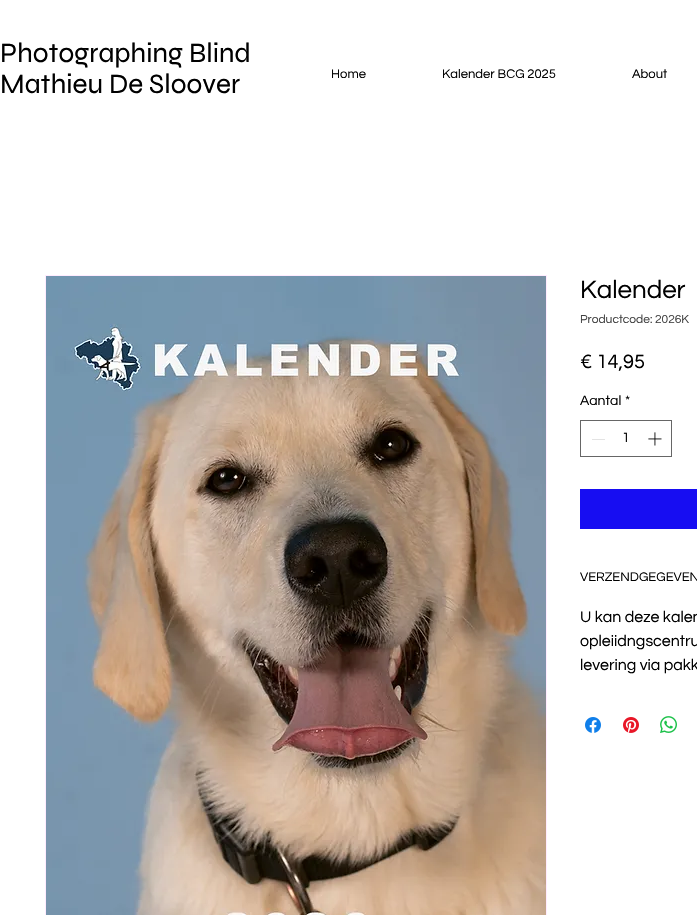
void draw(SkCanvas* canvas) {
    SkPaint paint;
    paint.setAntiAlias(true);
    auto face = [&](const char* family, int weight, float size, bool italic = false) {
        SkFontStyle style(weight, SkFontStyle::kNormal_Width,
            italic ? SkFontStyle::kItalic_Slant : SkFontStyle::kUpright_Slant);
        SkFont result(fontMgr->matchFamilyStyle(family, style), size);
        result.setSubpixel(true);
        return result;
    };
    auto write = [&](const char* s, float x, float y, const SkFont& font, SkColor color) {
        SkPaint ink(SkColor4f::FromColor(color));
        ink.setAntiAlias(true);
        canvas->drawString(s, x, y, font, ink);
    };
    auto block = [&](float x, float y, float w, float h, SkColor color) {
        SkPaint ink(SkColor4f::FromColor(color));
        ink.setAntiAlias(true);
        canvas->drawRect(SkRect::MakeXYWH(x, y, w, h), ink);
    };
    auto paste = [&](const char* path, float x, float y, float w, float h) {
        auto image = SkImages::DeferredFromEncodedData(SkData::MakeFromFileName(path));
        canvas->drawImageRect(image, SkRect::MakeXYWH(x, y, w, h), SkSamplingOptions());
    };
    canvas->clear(SK_ColorWHITE);
    auto kFont1 = face("Syne", 400, 28);
    write("Photographing Blind", 0, 62, kFont1, SK_ColorBLACK);
    write("Mathieu De Sloover", 0, 93, kFont1, SK_ColorBLACK);
    auto kFont2 = face("Questrial", 400, 13);
    write("Home", 331, 78, kFont2, SK_ColorBLACK);
    write("Kalender BCG 2025", 442, 78, kFont2, SK_ColorBLACK);
    write("About", 632, 78, kFont2, SK_ColorBLACK);
    paint.setStyle(SkPaint::kStroke_Style);
    paint.setStrokeWidth(1);
    paint.setColor(SkColorSetRGB(255, 235, 255));
    canvas->drawRect(SkRect::MakeXYWH(45.5f, 275.5f, 501, 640), paint);
    paste("pic1.png", 46, 276, 500, 639);
    auto kFont3 = face("Questrial", 400, 26);
    write("Kalender", 580, 298, kFont3, SK_ColorBLACK);
    auto kFont4 = face("Questrial", 400, 12);
    write("Productcode: 2026K", 580, 323, kFont4, SkColorSetRGB(64, 64, 64));
    auto kFont5 = face("Questrial", 400, 20);
    write("€ 14,95", 580, 368, kFont5, SK_ColorBLACK);
    auto kFont6 = face("Questrial", 400, 14);
    write("Aantal", 580, 405, kFont6, SK_ColorBLACK);
    write("*", 625, 405, kFont6, SK_ColorBLACK);
    paint.setColor(SkColorSetRGB(102, 102, 102));
    canvas->drawRect(SkRect::MakeXYWH(580.5f, 420.5f, 91, 36), paint);
    block(592, 439, 13, 1, SkColorSetRGB(227, 227, 227));
    write("1", 622, 442, kFont6, SK_ColorBLACK);
    paste("pic2.png", 648, 432, 14, 14);
    block(580, 489, 117, 40, SkColorSetRGB(23, 13, 242));
    write("VERZENDGEGEVEN", 580, 581, kFont2, SK_ColorBLACK);
    auto kFont7 = face("Questrial", 400, 16);
    write("U kan deze kalen", 580, 622, kFont7, SK_ColorBLACK);
    write("opleiidngscentru", 580, 646, kFont7, SK_ColorBLACK);
    write("levering via pakk", 580, 670, kFont7, SK_ColorBLACK);
    paste("pic3.png", 585, 717, 16, 16);
    paste("pic4.png", 623, 717, 16, 16);
    paste("pic5.png", 660, 716, 17, 17);
}
